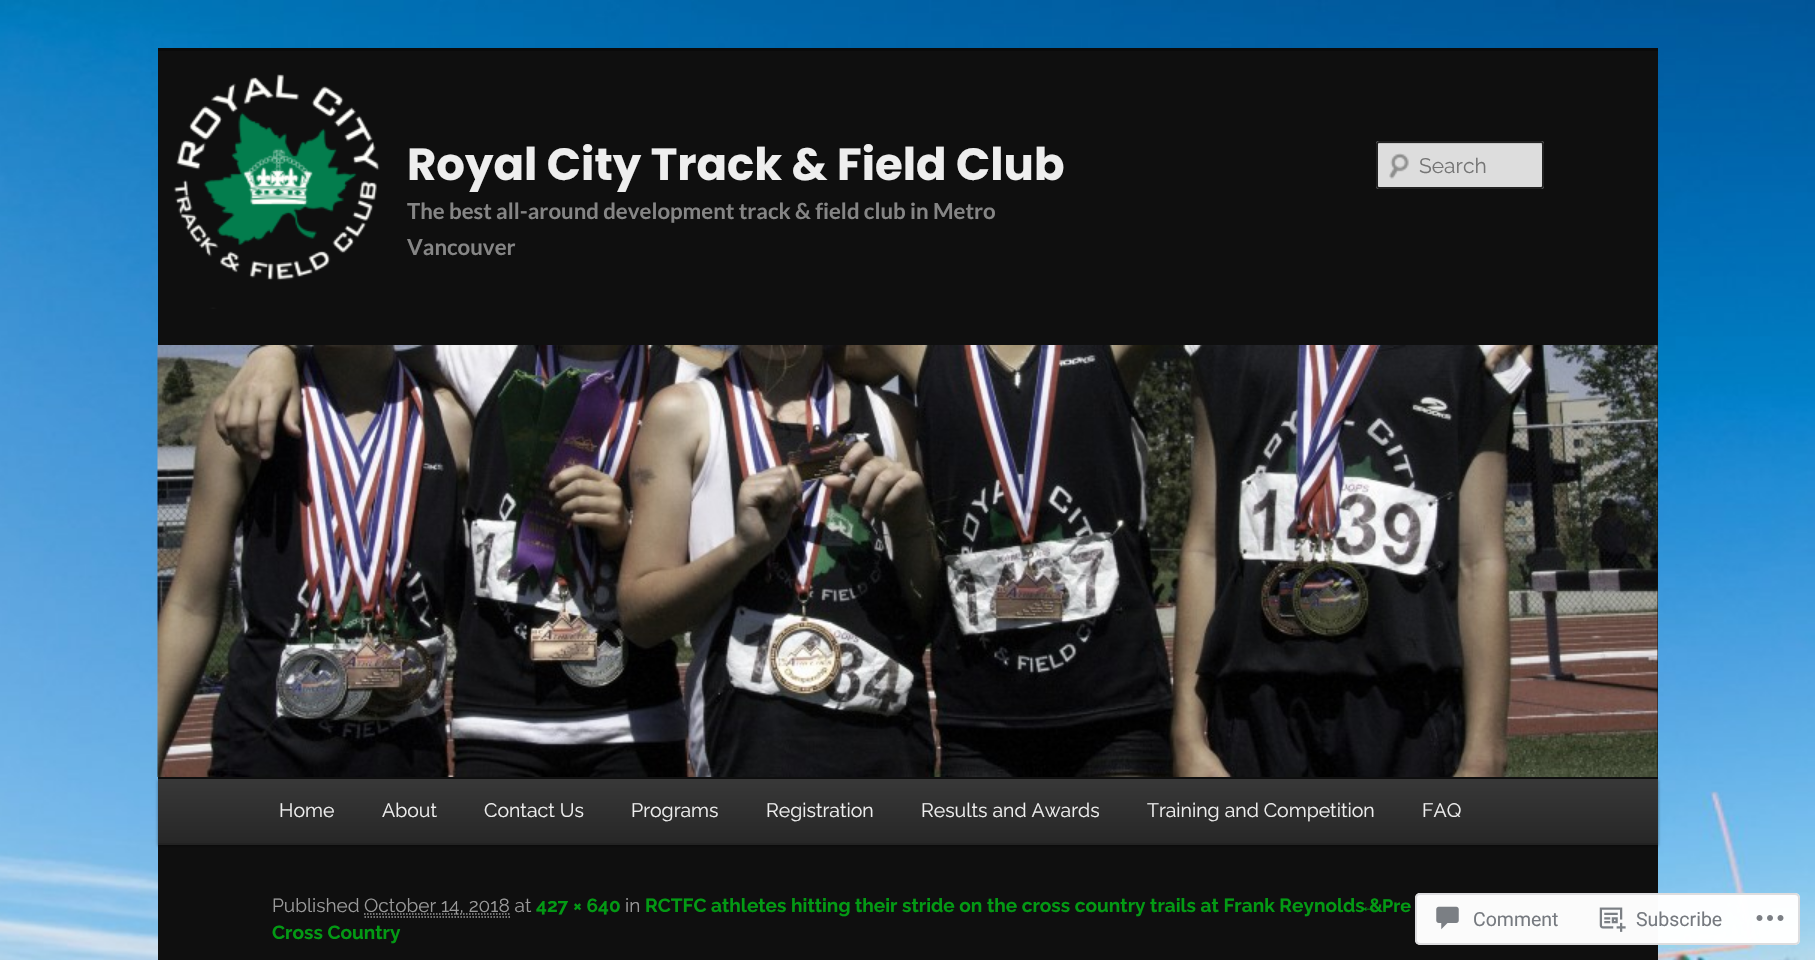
void draw(SkCanvas* canvas) {
    SkPaint paint;
    paint.setAntiAlias(true);
    auto face = [&](const char* family, int weight, float size, bool italic = false) {
        SkFontStyle style(weight, SkFontStyle::kNormal_Width,
            italic ? SkFontStyle::kItalic_Slant : SkFontStyle::kUpright_Slant);
        SkFont result(fontMgr->matchFamilyStyle(family, style), size);
        result.setSubpixel(true);
        return result;
    };
    auto write = [&](const char* s, float x, float y, const SkFont& font, SkColor color) {
        SkPaint ink(SkColor4f::FromColor(color));
        ink.setAntiAlias(true);
        canvas->drawString(s, x, y, font, ink);
    };
    auto block = [&](float x, float y, float w, float h, SkColor color) {
        SkPaint ink(SkColor4f::FromColor(color));
        ink.setAntiAlias(true);
        canvas->drawRect(SkRect::MakeXYWH(x, y, w, h), ink);
    };
    auto card = [&](float x, float y, float w, float h, float radius, SkColor color) {
        SkPaint ink(SkColor4f::FromColor(color));
        ink.setAntiAlias(true);
        canvas->drawRoundRect(SkRect::MakeXYWH(x, y, w, h), radius, radius, ink);
    };
    auto paste = [&](const char* path, float x, float y, float w, float h) {
        auto image = SkImages::DeferredFromEncodedData(SkData::MakeFromFileName(path));
        canvas->drawImageRect(image, SkRect::MakeXYWH(x, y, w, h), SkSamplingOptions());
    };
    canvas->clear(SK_ColorWHITE);
    paste("pic1.png", 0, 0, 1815, 960);
    block(158, 51, 1500, 909, SkColorSetRGB(15, 15, 15));
    paste("pic2.png", 173, 74, 207, 235);
    block(158, 48, 1500, 3, SkColorSetRGB(10, 10, 10));
    auto kFont1 = face("Poppins", 700, 45);
    write("Royal City Track & Field Club", 407, 180, kFont1, SkColorSetRGB(238, 238, 238));
    auto kFont2 = face("Lato", 700, 22.2f);
    write("The best all-around development track & field club in Metro", 407, 219, kFont2, SkColorSetRGB(133, 133, 133));
    write("Vancouver", 407, 255, kFont2, SkColorSetRGB(133, 133, 133));
    card(1376, 141, 168, 48, 3, SkColorSetRGB(221, 221, 221));
    paste("pic3.png", 1389, 153, 20, 26);
    paint.setColor(SkColorSetRGB(199, 199, 199));
    canvas->drawPath(SkPathBuilder().moveTo(1378, 144).lineTo(1540, 144).cubicTo(1541, 144, 1542, 145, 1542, 146).lineTo(1542, 144).cubicTo(1542, 144, 1541, 143, 1540, 143).lineTo(1378, 143).cubicTo(1378, 143, 1377, 144, 1377, 144).lineTo(1377, 146).close().detach(), paint);
    paint.setStyle(SkPaint::kStroke_Style);
    paint.setStrokeWidth(2);
    paint.setColor(SkColorSetRGB(34, 34, 34));
    canvas->drawRoundRect(SkRect::MakeXYWH(1377, 142, 166, 46), 2, 2, paint);
    auto kFont3 = face("Raleway", 400, 21);
    write("Search", 1419, 173, kFont3, SkColorSetRGB(117, 117, 117));
    paint.setStyle(SkPaint::kFill_Style);
    paint.setColor(SkColorSetARGB(102, 0, 0, 0));
    paint.setMaskFilter(SkMaskFilter::MakeBlur(kNormal_SkBlurStyle, 1.5f));
    canvas->drawRect(SkRect::MakeXYWH(158, 780, 1500, 66), paint);
    paint.setMaskFilter(nullptr);
    paste("pic4.png", 157, 345, 1501, 432);
    {
        const SkColor colors[] = {SkColorSetRGB(56, 56, 56), SkColorSetRGB(39, 39, 39)};
        const float stops[] = {0, 1};
        const SkPoint ends[] = {{908, 778}, {908, 843}};
        paint.setShader(SkGradientShader::MakeLinear(ends, colors, stops, 2, SkTileMode::kClamp));
        paint.setAlpha(255);
    }
    canvas->drawRect(SkRect::MakeXYWH(158, 779, 1500, 64), paint);
    block(158, 843, 1500, 2, SkColorSetRGB(34, 34, 34));
    auto kFont4 = face("Raleway", 400, 19.5f);
    write("Home", 279, 817, kFont4, SkColorSetRGB(238, 238, 238));
    write("About", 382, 817, kFont4, SkColorSetRGB(238, 238, 238));
    write("Contact Us", 484, 817, kFont4, SkColorSetRGB(238, 238, 238));
    write("Programs", 631, 817, kFont4, SkColorSetRGB(238, 238, 238));
    write("Registration", 766, 817, kFont4, SkColorSetRGB(238, 238, 238));
    write("Results and Awards", 921, 817, kFont4, SkColorSetRGB(238, 238, 238));
    write("Training and Competition", 1147, 817, kFont4, SkColorSetRGB(238, 238, 238));
    write("FAQ", 1422, 817, kFont4, SkColorSetRGB(238, 238, 238));
    auto kFont5 = face("Raleway", 400, 19.05f);
    write("Published", 272, 912, kFont5, SkColorSetRGB(153, 153, 153));
    paint.setStyle(SkPaint::kStroke_Style);
    paint.setStrokeWidth(1.5f);
    paint.setShader(nullptr);
    paint.setColor(SkColorSetRGB(153, 153, 153));
    paint.setPathEffect(SkDashPathEffect::Make({{1.5f, 1.5f}}, 0));
    canvas->drawPath(SkPathBuilder().moveTo(364, 914).lineTo(509.5f, 914).detach(), paint);
    paint.setPathEffect(nullptr);
    write("October 14, 2018 at", 364, 912, kFont5, SkColorSetRGB(153, 153, 153));
    paint.setPathEffect(SkDashPathEffect::Make({{1.5f, 1.5f}}, 0));
    canvas->drawPath(SkPathBuilder().moveTo(364.5f, 917).lineTo(510, 917).detach(), paint);
    paint.setPathEffect(nullptr);
    auto kFont6 = face("Raleway", 700, 19.05f);
    write("427 × 640", 536, 912, kFont6, SkColorSetRGB(3, 154, 20));
    write("in", 625, 912, kFont5, SkColorSetRGB(153, 153, 153));
    auto kFont7 = face("Liberation Sans", 700, 18);
    write("←", 1360, 912, kFont7, SkColorSetRGB(3, 154, 20));
    write("RCTFC athletes hitting their stride on the cross country trails at Frank Reynolds &", 645, 912, kFont6, SkColorSetRGB(3, 154, 20));
    write("Cross Country", 272, 939, kFont6, SkColorSetRGB(3, 154, 20));
    auto kFont8 = face("Raleway", 700, 18);
    write("Pre", 1382, 912, kFont8, SkColorSetRGB(3, 154, 20));
    card(1415, 893, 385, 52, 5, SkColorSetARGB(250, 255, 255, 255));
    paint.setStrokeWidth(2);
    paint.setColor(SkColorSetARGB(250, 220, 220, 222));
    canvas->drawRoundRect(SkRect::MakeXYWH(1416, 894, 383, 50), 4, 4, paint);
    paste("pic5.png", 1436, 906, 23, 24);
    auto kFont9 = face("Roboto", 400, 19.5f);
    write("Comment", 1473, 926, kFont9, SkColorSetRGB(118, 122, 128));
    paste("pic6.png", 1599, 907, 27, 25);
    write("Subscribe", 1636, 926, kFont9, SkColorSetRGB(118, 122, 128));
    paste("pic7.png", 1756, 915, 28, 6);
}
